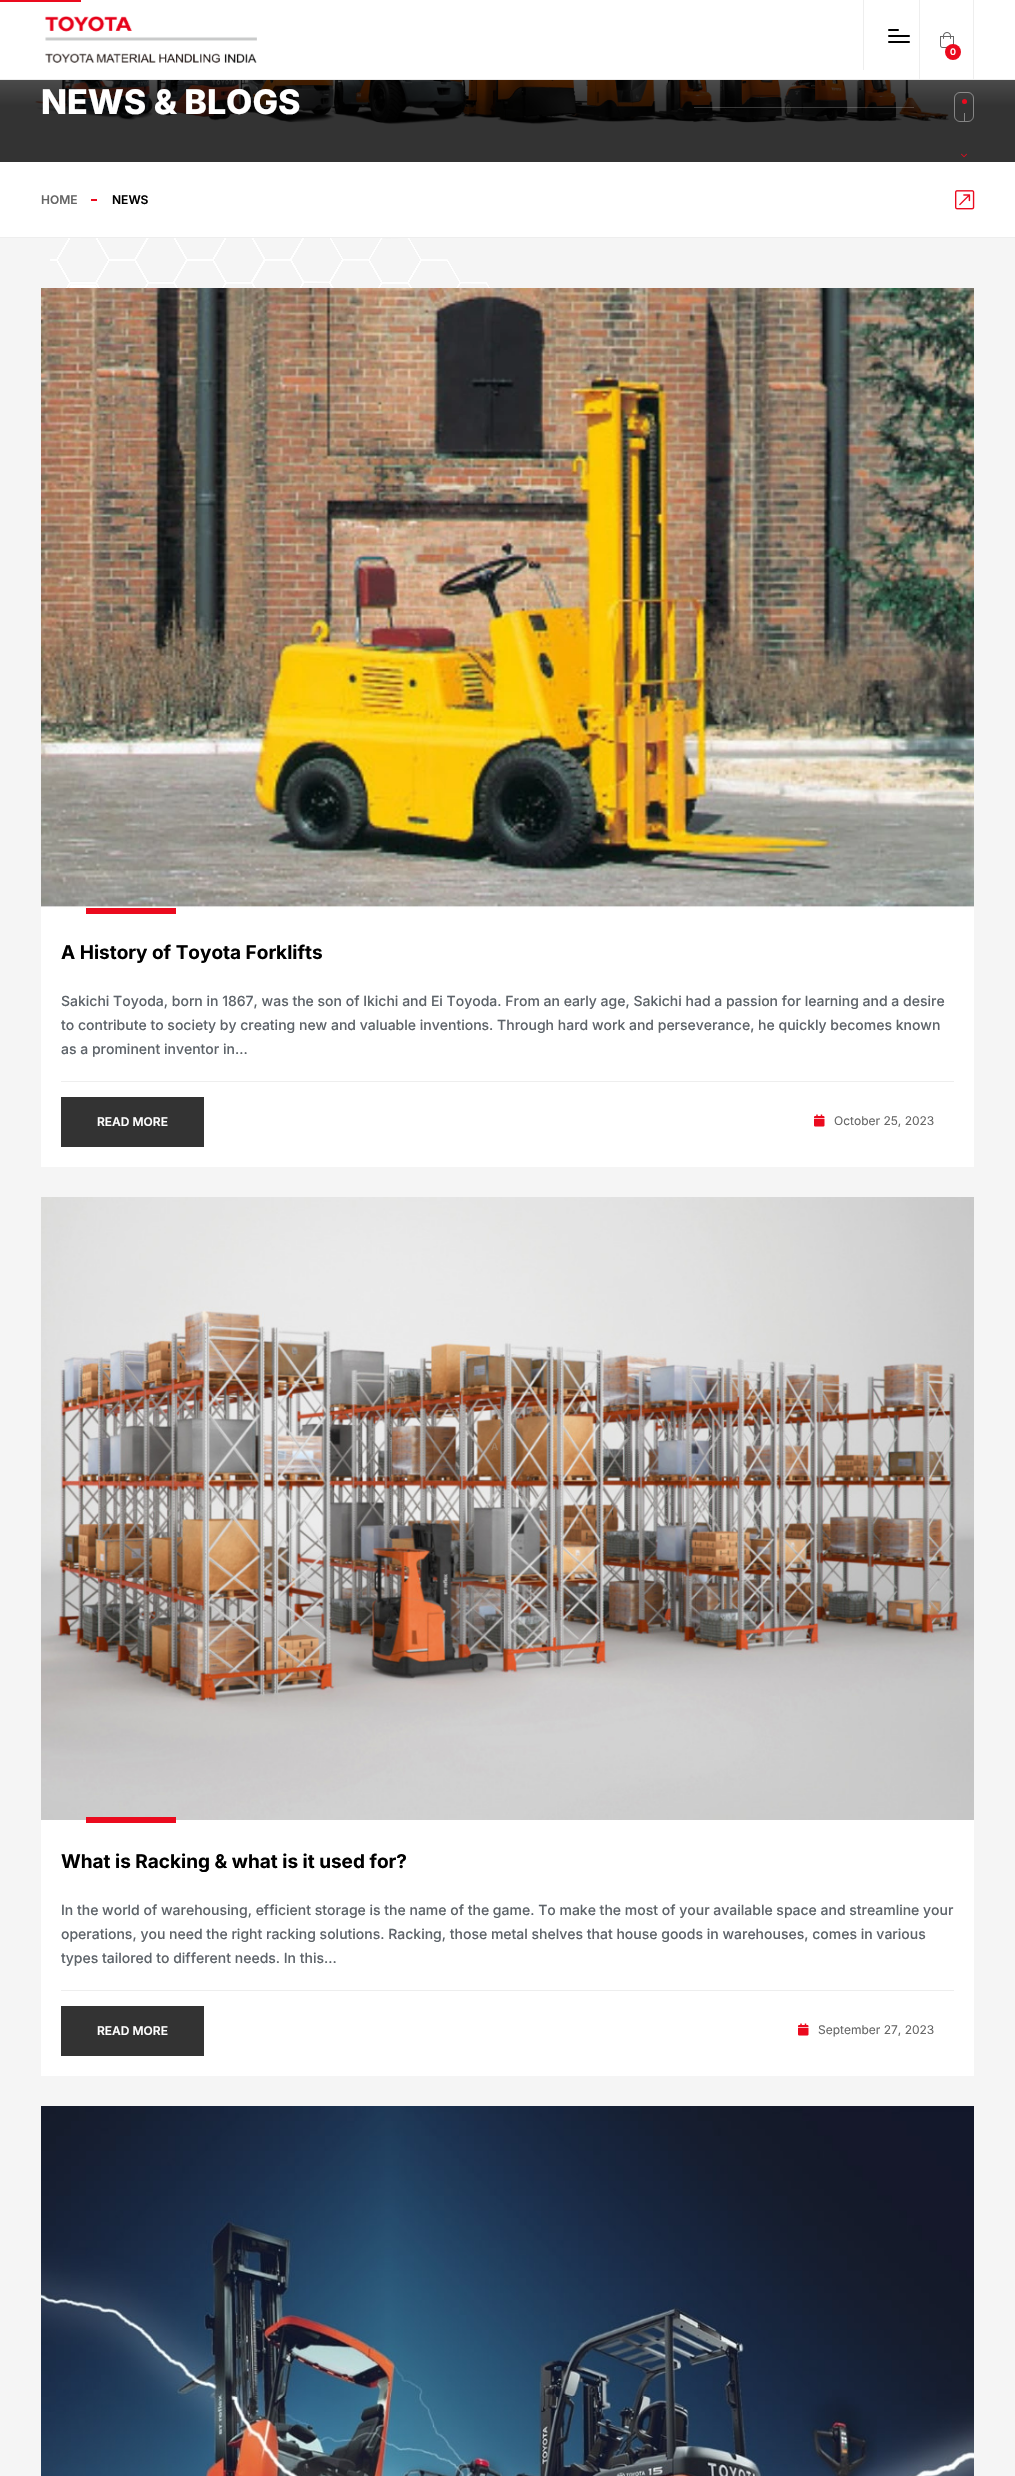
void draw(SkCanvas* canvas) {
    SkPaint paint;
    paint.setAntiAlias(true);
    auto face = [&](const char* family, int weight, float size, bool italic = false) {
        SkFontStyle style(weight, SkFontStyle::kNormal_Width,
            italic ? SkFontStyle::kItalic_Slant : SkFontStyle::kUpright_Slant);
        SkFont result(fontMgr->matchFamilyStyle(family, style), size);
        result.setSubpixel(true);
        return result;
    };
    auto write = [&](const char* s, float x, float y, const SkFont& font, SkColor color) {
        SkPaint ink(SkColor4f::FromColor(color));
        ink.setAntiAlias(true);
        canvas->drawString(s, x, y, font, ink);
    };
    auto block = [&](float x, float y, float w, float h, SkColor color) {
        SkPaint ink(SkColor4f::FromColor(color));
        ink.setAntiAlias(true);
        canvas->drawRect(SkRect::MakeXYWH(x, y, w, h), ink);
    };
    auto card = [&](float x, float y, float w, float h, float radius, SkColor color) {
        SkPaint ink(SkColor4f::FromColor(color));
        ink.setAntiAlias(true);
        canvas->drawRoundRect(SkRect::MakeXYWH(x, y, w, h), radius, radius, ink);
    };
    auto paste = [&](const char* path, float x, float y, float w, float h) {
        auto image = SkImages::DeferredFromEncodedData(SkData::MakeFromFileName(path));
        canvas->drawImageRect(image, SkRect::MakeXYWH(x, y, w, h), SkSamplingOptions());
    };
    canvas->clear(SK_ColorWHITE);
    block(0, 0, 81, 2, SkColorSetRGB(235, 10, 30));
    block(0, 79, 1015, 1, SkColorSetRGB(238, 238, 238));
    paste("pic1.png", 45, 16, 212, 47);
    block(863, 0, 1, 70, SkColorSetRGB(238, 238, 238));
    card(888, 29, 11, 2, 1, SK_ColorBLACK);
    card(888, 35, 22, 2, 1, SK_ColorBLACK);
    card(888, 41, 22, 2, 1, SK_ColorBLACK);
    block(973, 0, 1, 80, SkColorSetRGB(238, 238, 238));
    block(919, 0, 1, 80, SkColorSetRGB(238, 238, 238));
    paste("pic2.png", 940, 32, 14, 16);
    paint.setColor(SkColorSetRGB(235, 10, 30));
    canvas->drawCircle(953, 52, 8, paint);
    auto kFont1 = face("Inter", 600, 9);
    write("0", 950, 55, kFont1, SK_ColorWHITE);
    paste("pic3.png", 35, 80, 915, 45);
    {
        const SkColor colors[] = {SkColorSetARGB(0, 0, 0, 0), SkColorSetARGB(204, 0, 0, 0)};
        const float stops[] = {0, 0.8f};
        const SkPoint ends[] = {{508, -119}, {508, 162}};
        paint.setShader(SkGradientShader::MakeLinear(ends, colors, stops, 2, SkTileMode::kClamp));
        paint.setAlpha(255);
    }
    canvas->drawRect(SkRect::MakeXYWH(0, 80, 1015, 82), paint);
    auto kFont2 = face("Inter", 800, 34);
    write("NEWS & BLOGS", 41, 114, kFont2, SK_ColorWHITE);
    block(694, 107, 220, 1, SkColorSetARGB(51, 255, 255, 255));
    paint.setStyle(SkPaint::kStroke_Style);
    paint.setStrokeWidth(1);
    paint.setShader(nullptr);
    paint.setColor(SkColorSetARGB(102, 255, 255, 255));
    canvas->drawRoundRect(SkRect::MakeXYWH(954.5f, 92.5f, 19, 29), 5.5f, 5.5f, paint);
    paint.setStyle(SkPaint::kFill_Style);
    paint.setColor(SkColorSetRGB(235, 10, 30));
    canvas->drawCircle(964.5f, 101.5f, 2.5f, paint);
    block(964, 113, 1, 8, SkColorSetRGB(133, 133, 133));
    paste("pic4.png", 961, 153, 6, 5);
    block(0, 237, 1015, 1, SkColorSetRGB(238, 238, 238));
    auto kFont3 = face("Inter", 600, 12);
    write("HOME", 41, 204, kFont3, SkColorSetRGB(102, 102, 102));
    block(91, 199, 6, 2, SkColorSetRGB(235, 10, 30));
    write("NEWS", 112, 204, kFont3, SK_ColorBLACK);
    paste("pic5.png", 955, 190, 20, 20);
    block(0, 238, 1015, 2238, SkColorSetRGB(245, 245, 245));
    paste("pic6.png", 50, 238, 440, 50);
    paint.setColor(SK_ColorWHITE);
    canvas->drawPath(SkPathBuilder().moveTo(71, 284).lineTo(108, 306).lineTo(96, 327).lineTo(59, 306).close().detach(), paint);
    canvas->drawPath(SkPathBuilder().moveTo(107.5f, 305.5f).lineTo(71, 284.5f).lineTo(95.5f, 284.5f).close().detach(), paint);
    paste("pic7.png", 41, 288, 933, 623);
    block(41, 911, 933, 256, SK_ColorWHITE);
    block(86, 908, 90, 6, SkColorSetRGB(235, 10, 30));
    auto kFont4 = face("Inter", 700, 19);
    write("A History of Toyota Forklifts", 61, 959, kFont4, SK_ColorBLACK);
    auto kFont5 = face("Inter", 500, 14);
    write("Sakichi Toyoda, born in 1867, was the son of Ikichi and Ei Toyoda. From an early age, Sakichi had a passion for learning and a desire", 61, 1006, kFont5, SkColorSetRGB(94, 100, 106));
    write("to contribute to society by creating new and valuable inventions. Through hard work and perseverance, he quickly becomes known", 61, 1030, kFont5, SkColorSetRGB(94, 100, 106));
    write("as a prominent inventor in…", 61, 1054, kFont5, SkColorSetRGB(94, 100, 106));
    block(61, 1081, 893, 1, SkColorSetRGB(238, 238, 238));
    block(61, 1097, 143, 50, SkColorSetRGB(51, 51, 51));
    write("READ MORE", 97, 1126, kFont3, SK_ColorWHITE);
    paste("pic8.png", 814, 1114, 11, 13);
    auto kFont6 = face("Inter", 400, 12);
    write("October 25, 2023", 834, 1125, kFont6, SkColorSetRGB(102, 102, 102));
    paste("pic9.png", 41, 1197, 933, 623);
    auto kFont7 = face("Inter", 600, 10);
    write("A", 491, 1450, kFont7, SkColorSetRGB(159, 126, 98));
    block(41, 1820, 933, 256, SK_ColorWHITE);
    block(86, 1817, 90, 6, SkColorSetRGB(235, 10, 30));
    write("What is Racking & what is it used for?", 61, 1868, kFont4, SK_ColorBLACK);
    write("In the world of warehousing, efficient storage is the name of the game. To make the most of your available space and streamline your", 61, 1915, kFont5, SkColorSetRGB(94, 100, 106));
    write("operations, you need the right racking solutions. Racking, those metal shelves that house goods in warehouses, comes in various", 61, 1939, kFont5, SkColorSetRGB(94, 100, 106));
    write("types tailored to different needs. In this…", 61, 1963, kFont5, SkColorSetRGB(94, 100, 106));
    block(61, 1990, 893, 1, SkColorSetRGB(238, 238, 238));
    block(61, 2006, 143, 50, SkColorSetRGB(51, 51, 51));
    write("READ MORE", 97, 2035, kFont3, SK_ColorWHITE);
    paste("pic8.png", 798, 2023, 11, 13);
    write("September 27, 2023", 818, 2034, kFont6, SkColorSetRGB(102, 102, 102));
    paste("pic10.png", 41, 2106, 933, 370);
}
